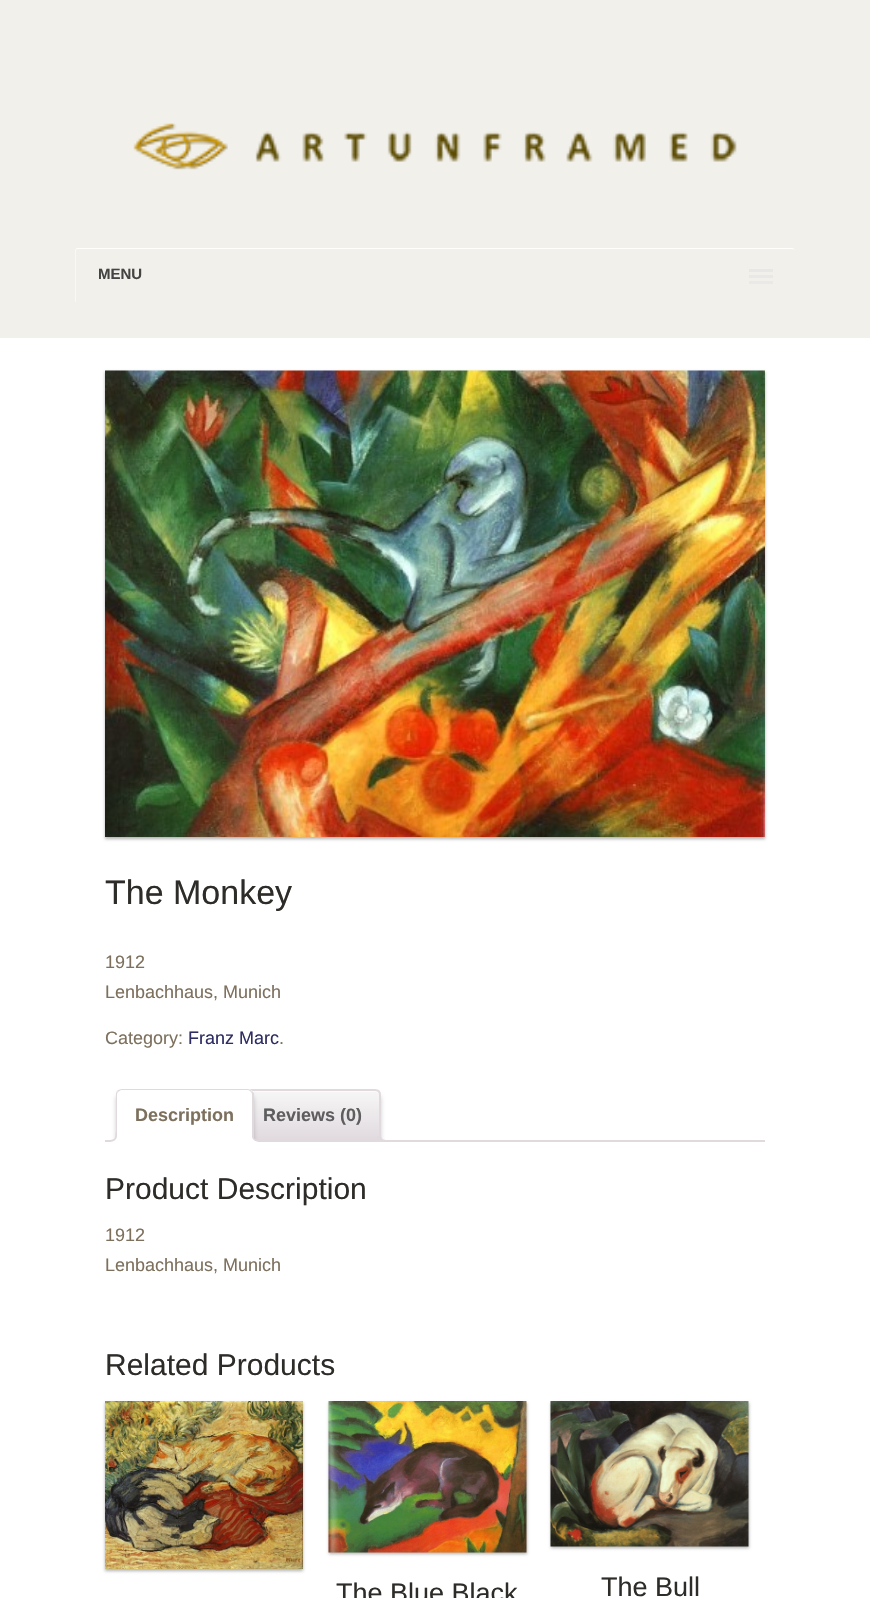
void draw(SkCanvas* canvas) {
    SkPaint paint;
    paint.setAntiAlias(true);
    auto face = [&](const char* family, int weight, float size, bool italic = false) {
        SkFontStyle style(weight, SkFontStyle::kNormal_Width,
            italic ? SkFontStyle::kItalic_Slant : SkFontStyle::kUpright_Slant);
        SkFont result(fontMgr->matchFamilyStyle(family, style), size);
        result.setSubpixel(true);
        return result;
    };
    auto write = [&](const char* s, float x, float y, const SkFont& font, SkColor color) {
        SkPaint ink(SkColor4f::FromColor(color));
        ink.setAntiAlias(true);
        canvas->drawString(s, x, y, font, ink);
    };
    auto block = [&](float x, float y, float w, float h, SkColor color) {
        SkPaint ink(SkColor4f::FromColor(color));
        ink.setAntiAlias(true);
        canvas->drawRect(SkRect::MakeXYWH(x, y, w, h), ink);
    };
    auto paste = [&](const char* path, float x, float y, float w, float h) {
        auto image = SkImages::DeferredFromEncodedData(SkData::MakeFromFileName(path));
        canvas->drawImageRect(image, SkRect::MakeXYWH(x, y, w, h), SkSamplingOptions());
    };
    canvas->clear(SkColorSetRGB(242, 240, 234));
    paste("pic1.png", 133, 123, 604, 47);
    paint.setColor(SkColorSetRGB(249, 248, 245));
    canvas->drawPath(SkPathBuilder().moveTo(78, 248).cubicTo(76, 248, 75, 249, 75, 251).lineTo(75, 302).lineTo(76, 302).lineTo(76, 250).cubicTo(76, 249, 78, 248, 80, 248).close().detach(), paint);
    paint.setColor(SkColorSetARGB(230, 255, 255, 255));
    canvas->drawPath(SkPathBuilder().moveTo(78, 249).lineTo(792, 249).cubicTo(794, 249, 795, 250, 795, 252).cubicTo(795, 250, 794, 248, 792, 248).lineTo(78, 248).cubicTo(76, 248, 75, 250, 75, 252).cubicTo(75, 250, 76, 249, 78, 249).close().detach(), paint);
    auto kFont1 = face("Liberation Sans", 700, 15);
    write("MENU", 98, 279, kFont1, SkColorSetRGB(68, 68, 68));
    block(749, 281, 24, 3, SkColorSetRGB(234, 233, 231));
    block(749, 269, 24, 3, SkColorSetRGB(231, 231, 230));
    block(749, 275, 24, 3, SkColorSetRGB(232, 232, 231));
    block(0, 338, 870, 1260, SK_ColorWHITE);
    paint.setColor(SkColorSetARGB(77, 0, 0, 0));
    paint.setMaskFilter(SkMaskFilter::MakeBlur(kNormal_SkBlurStyle, 1.5f));
    canvas->drawRect(SkRect::MakeXYWH(105, 372, 660, 467), paint);
    paint.setMaskFilter(nullptr);
    paste("pic2.png", 105, 370, 660, 467);
    auto kFont2 = face("Liberation Sans", 400, 34);
    write("The Monkey", 105, 904, kFont2, SkColorSetRGB(46, 44, 40));
    auto kFont3 = face("Liberation Sans", 400, 18);
    write("1912", 105, 968, kFont3, SkColorSetRGB(125, 112, 93));
    write("Lenbachhaus, Munich", 105, 998, kFont3, SkColorSetRGB(125, 112, 93));
    write("Category:", 105, 1044, kFont3, SkColorSetRGB(125, 112, 93));
    write("Franz Marc", 188, 1044, kFont3, SkColorSetRGB(46, 45, 99));
    write(".", 279, 1044, kFont3, SkColorSetRGB(125, 112, 93));
    canvas->save();
    canvas->clipRect(SkRect::MakeXYWH(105, 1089, 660, 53));
    paint.setColor(SkColorSetARGB(51, 0, 0, 0));
    paint.setMaskFilter(SkMaskFilter::MakeBlur(kNormal_SkBlurStyle, 2));
    canvas->drawRoundRect(SkRect::MakeXYWH(243, 1094, 138, 52), 6, 6, paint);
    paint.setMaskFilter(nullptr);
    canvas->restore();
    canvas->save();
    canvas->clipPath(SkPathBuilder().moveTo(249, 1089).lineTo(375, 1089).cubicTo(378.5f, 1089, 381, 1091.5f, 381, 1095).lineTo(381, 1142).lineTo(243, 1142).lineTo(243, 1095).cubicTo(243, 1091.5f, 245.5f, 1089, 249, 1089).close().detach(), true);
    {
        const SkColor colors[] = {SkColorSetRGB(247, 246, 247), SkColorSetRGB(224, 218, 223)};
        const float stops[] = {0, 1};
        const SkPoint ends[] = {{312, 1091}, {312, 1140}};
        paint.setShader(SkGradientShader::MakeLinear(ends, colors, stops, 2, SkTileMode::kClamp));
        paint.setAlpha(255);
    }
    canvas->drawRect(SkRect::MakeXYWH(253, 1091, 128, 49), paint);
    canvas->restore();
    paint.setShader(nullptr);
    paint.setColor(SkColorSetRGB(252, 251, 252));
    canvas->drawPath(SkPathBuilder().moveTo(249, 1092).lineTo(375, 1092).cubicTo(377, 1092, 380, 1094, 380, 1096).cubicTo(380, 1093, 378, 1091, 375, 1091).lineTo(250, 1091).cubicTo(248, 1091, 247, 1092, 246, 1093).close().detach(), paint);
    paint.setStyle(SkPaint::kStroke_Style);
    paint.setStrokeWidth(2);
    paint.setColor(SkColorSetRGB(224, 218, 223));
    canvas->drawPath(SkPathBuilder().moveTo(249, 1090).lineTo(375, 1090).cubicTo(378, 1090, 380, 1092, 380, 1095).lineTo(380, 1141).lineTo(244, 1141).lineTo(244, 1095).cubicTo(244, 1092, 246, 1090, 249, 1090).close().detach(), paint);
    canvas->save();
    canvas->clipRect(SkRect::MakeXYWH(105, 1089, 660, 53));
    paint.setStyle(SkPaint::kFill_Style);
    canvas->drawPath(SkPathBuilder().moveTo(377, 1136).cubicTo(377, 1143.5f, 378.5f, 1145, 386, 1145).lineTo(386, 1141.5f).cubicTo(382.5f, 1141.5f, 380, 1139.5f, 379.5f, 1136).close().detach(), paint);
    canvas->restore();
    canvas->drawPath(SkPathBuilder(SkPathFillType::kEvenOdd).moveTo(379.5f, 1132.5f).lineTo(388.5f, 1132.5f).lineTo(388.5f, 1141.5f).cubicTo(384.5f, 1141.5f, 379.5f, 1141, 379.5f, 1135.5f).close().moveTo(381, 1132.5f).lineTo(388.5f, 1132.5f).lineTo(388.5f, 1140).cubicTo(385, 1140, 381, 1140, 381, 1135.5f).close().detach(), paint);
    block(105, 1140, 660, 2, SkColorSetRGB(224, 218, 223));
    canvas->save();
    canvas->clipRect(SkRect::MakeXYWH(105, 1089, 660, 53));
    paint.setColor(SkColorSetARGB(51, 0, 0, 0));
    paint.setMaskFilter(SkMaskFilter::MakeBlur(kNormal_SkBlurStyle, 2));
    canvas->drawRoundRect(SkRect::MakeXYWH(116, 1094, 138, 52), 6, 6, paint);
    paint.setMaskFilter(nullptr);
    canvas->restore();
    paint.setColor(SK_ColorWHITE);
    canvas->drawPath(SkPathBuilder().moveTo(122, 1089).lineTo(248, 1089).cubicTo(251.5f, 1089, 254, 1091.5f, 254, 1095).lineTo(254, 1142).lineTo(116, 1142).lineTo(116, 1095).cubicTo(116, 1091.5f, 118.5f, 1089, 122, 1089).close().detach(), paint);
    paint.setColor(SkColorSetRGB(224, 218, 223));
    canvas->drawPath(SkPathBuilder().moveTo(122, 1089).cubicTo(120, 1089, 118, 1090, 117, 1091).lineTo(118, 1092).lineTo(121, 1090).lineTo(248, 1090).cubicTo(249, 1090, 250, 1091, 251, 1092).lineTo(252, 1091).cubicTo(251, 1090, 249, 1089, 248, 1089).close().detach(), paint);
    canvas->drawPath(SkPathBuilder().moveTo(252, 1091).lineTo(254, 1093).lineTo(254, 1142).lineTo(252, 1140).lineTo(252, 1095).cubicTo(252, 1094, 252, 1093, 251, 1092).close().detach(), paint);
    paint.setColor(SK_ColorWHITE);
    canvas->drawPath(SkPathBuilder().moveTo(254, 1142).lineTo(116, 1142).lineTo(117, 1140).lineTo(252, 1140).close().detach(), paint);
    paint.setColor(SkColorSetRGB(224, 218, 223));
    canvas->drawPath(SkPathBuilder().moveTo(117, 1091).cubicTo(116, 1092, 116, 1094, 116, 1095).lineTo(116, 1141).lineTo(117, 1140).lineTo(117, 1095).cubicTo(117, 1094, 117, 1093, 118, 1092).close().detach(), paint);
    auto kFont4 = face("Liberation Sans", 700, 18);
    write("Description", 135, 1121, kFont4, SkColorSetRGB(125, 112, 93));
    canvas->save();
    canvas->clipRect(SkRect::MakeXYWH(105, 1089, 660, 53));
    paint.setColor(SK_ColorWHITE);
    canvas->drawPath(SkPathBuilder().moveTo(111, 1141.5f).lineTo(111, 1145).cubicTo(118.5f, 1145, 120, 1143.5f, 120, 1136).lineTo(117, 1136).cubicTo(116.5f, 1139, 114, 1141.5f, 111, 1141.5f).close().detach(), paint);
    canvas->restore();
    paint.setColor(SkColorSetRGB(224, 218, 223));
    canvas->drawPath(SkPathBuilder(SkPathFillType::kEvenOdd).moveTo(108, 1132.5f).lineTo(117, 1132.5f).cubicTo(117, 1140, 115.5f, 1141.5f, 108, 1141.5f).close().moveTo(108, 1132.5f).lineTo(115.5f, 1132.5f).cubicTo(115.5f, 1139, 114.5f, 1140, 108, 1140).close().detach(), paint);
    canvas->save();
    canvas->clipRect(SkRect::MakeXYWH(105, 1089, 660, 53));
    paint.setColor(SK_ColorWHITE);
    canvas->drawPath(SkPathBuilder().moveTo(249, 1136).cubicTo(249, 1143.5f, 250.5f, 1145, 258, 1145).lineTo(258, 1141.5f).cubicTo(255, 1141.5f, 252.5f, 1139, 252, 1136).close().detach(), paint);
    canvas->restore();
    paint.setColor(SkColorSetRGB(224, 218, 223));
    canvas->drawPath(SkPathBuilder(SkPathFillType::kEvenOdd).moveTo(252, 1132.5f).lineTo(261, 1132.5f).lineTo(261, 1141.5f).cubicTo(257, 1141.5f, 252, 1141, 252, 1135.5f).close().moveTo(253.5f, 1132.5f).lineTo(261, 1132.5f).lineTo(261, 1140).cubicTo(257.5f, 1140, 253.5f, 1140, 253.5f, 1135.5f).close().detach(), paint);
    write("Reviews (0)", 263, 1121, kFont4, SkColorSetRGB(94, 94, 94));
    auto kFont5 = face("Liberation Sans", 400, 30);
    write("Product Description", 105, 1199, kFont5, SkColorSetRGB(46, 44, 40));
    write("1912", 105, 1241, kFont3, SkColorSetRGB(125, 112, 93));
    write("Lenbachhaus, Munich", 105, 1271, kFont3, SkColorSetRGB(125, 112, 93));
    write("Related Products", 105, 1375, kFont5, SkColorSetRGB(46, 44, 40));
    paint.setColor(SkColorSetARGB(77, 0, 0, 0));
    paint.setMaskFilter(SkMaskFilter::MakeBlur(kNormal_SkBlurStyle, 1.5f));
    canvas->drawRect(SkRect::MakeXYWH(105, 1403, 198, 168), paint);
    paint.setMaskFilter(nullptr);
    paste("pic3.png", 105, 1401, 198, 168);
    paint.setMaskFilter(SkMaskFilter::MakeBlur(kNormal_SkBlurStyle, 1.5f));
    canvas->drawRect(SkRect::MakeXYWH(329, 1403, 198, 151), paint);
    paint.setMaskFilter(nullptr);
    paste("pic4.png", 328, 1401, 199, 152);
    auto kFont6 = face("Liberation Sans", 400, 27);
    write("The Blue Black", 336, 1602, kFont6, SkColorSetRGB(46, 44, 40));
    paint.setMaskFilter(SkMaskFilter::MakeBlur(kNormal_SkBlurStyle, 1.5f));
    canvas->drawRect(SkRect::MakeXYWH(551, 1403, 198, 145), paint);
    paint.setMaskFilter(nullptr);
    paste("pic5.png", 550, 1401, 199, 146);
    write("The Bull", 601, 1596, kFont6, SkColorSetRGB(46, 44, 40));
}
